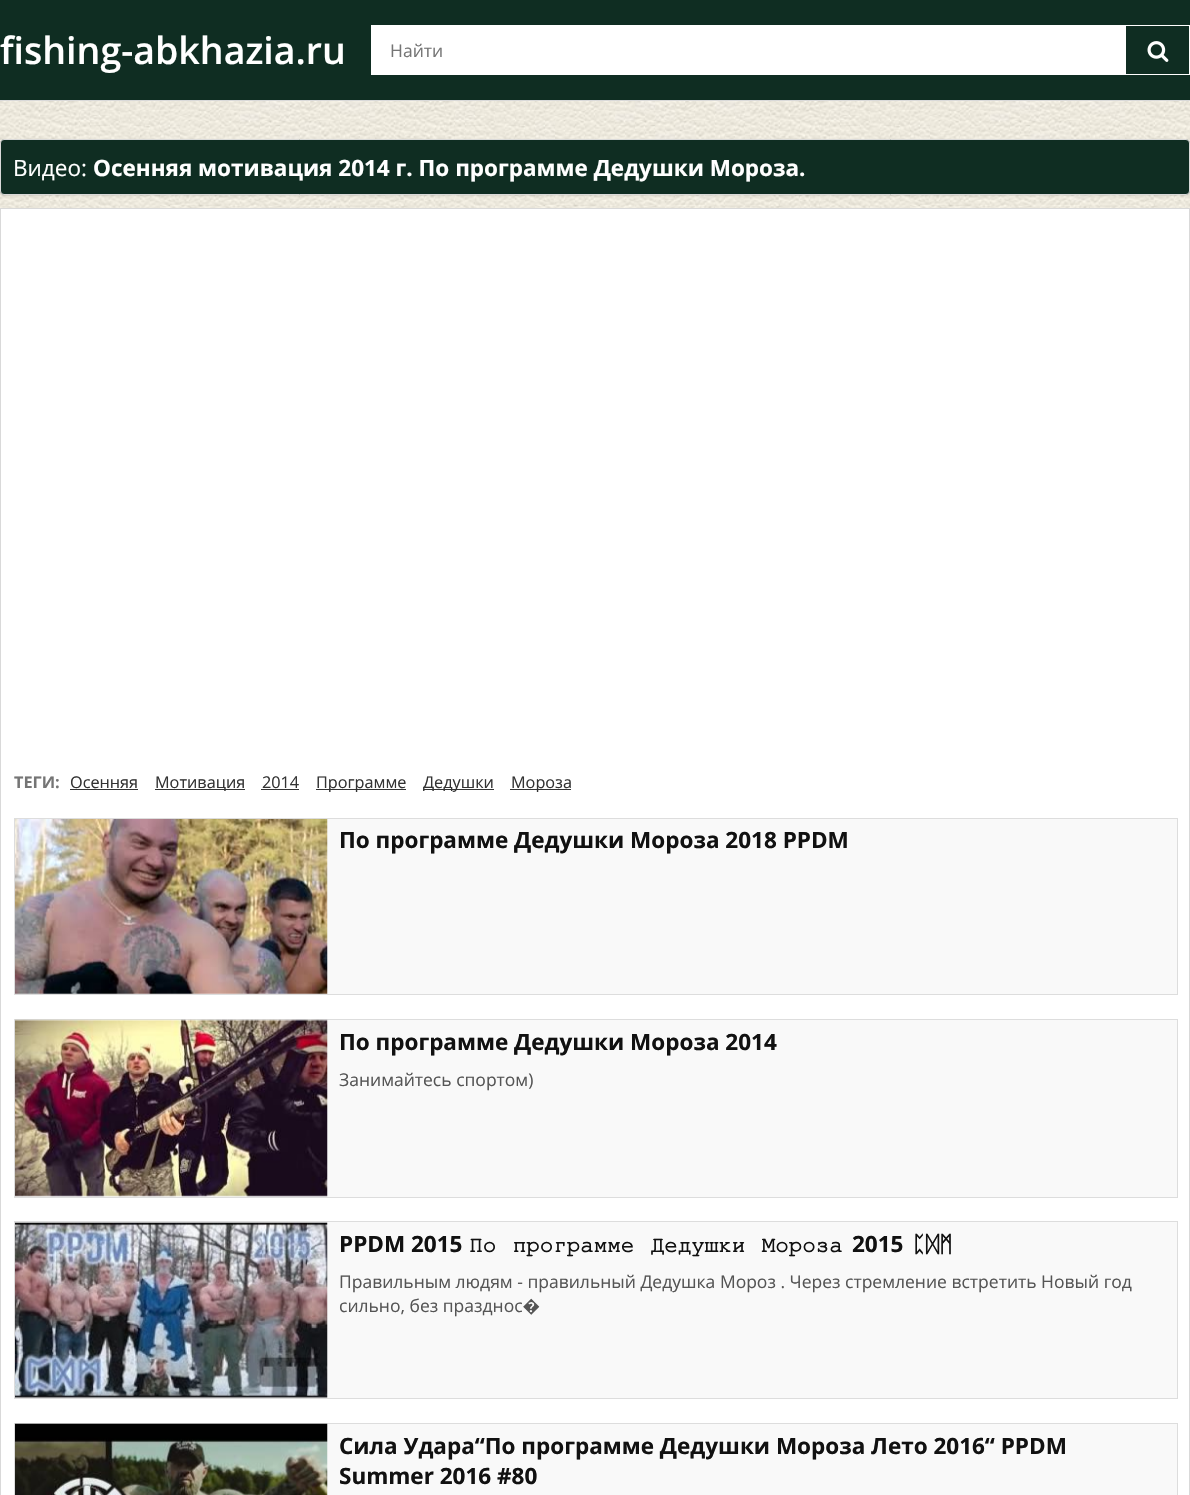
void draw(SkCanvas* canvas) {
    SkPaint paint;
    paint.setAntiAlias(true);
    auto face = [&](const char* family, int weight, float size, bool italic = false) {
        SkFontStyle style(weight, SkFontStyle::kNormal_Width,
            italic ? SkFontStyle::kItalic_Slant : SkFontStyle::kUpright_Slant);
        SkFont result(fontMgr->matchFamilyStyle(family, style), size);
        result.setSubpixel(true);
        return result;
    };
    auto write = [&](const char* s, float x, float y, const SkFont& font, SkColor color) {
        SkPaint ink(SkColor4f::FromColor(color));
        ink.setAntiAlias(true);
        canvas->drawString(s, x, y, font, ink);
    };
    auto writeSpaced = [&](const char* s, float x, float y, const SkFont& font, const SkPaint& ink, float letter, float word) {
        std::vector<SkGlyphID> glyphs(font.countText(s, strlen(s), SkTextEncoding::kUTF8));
        std::vector<float> xs(glyphs.size());
        font.textToGlyphs(s, strlen(s), SkTextEncoding::kUTF8, glyphs);
        font.getXPos(glyphs, xs, x);
        float extra = 0;
        for (size_t i = 0; i < glyphs.size(); i++) {
            xs[i] += extra;
            extra += letter + word * (glyphs[i] == font.unicharToGlyph(' '));
        }
        canvas->drawTextBlob(SkTextBlob::MakeFromPosHGlyphs(glyphs, xs, y, font), 0, 0, ink);
    };
    auto block = [&](float x, float y, float w, float h, SkColor color) {
        SkPaint ink(SkColor4f::FromColor(color));
        ink.setAntiAlias(true);
        canvas->drawRect(SkRect::MakeXYWH(x, y, w, h), ink);
    };
    auto paste = [&](const char* path, float x, float y, float w, float h) {
        auto image = SkImages::DeferredFromEncodedData(SkData::MakeFromFileName(path));
        canvas->drawImageRect(image, SkRect::MakeXYWH(x, y, w, h), SkSamplingOptions());
    };
    canvas->clear(SkColorSetRGB(15, 45, 34));
    block(0, 100, 1190, 1, SkColorSetRGB(217, 217, 217));
    auto kFont1 = face("Open Sans", 600, 37.5f);
    write("fishing-abkhazia.ru", 0, 64, kFont1, SK_ColorWHITE);
    block(371, 25, 819, 50, SK_ColorWHITE);
    auto kFont2 = face("Open Sans", 400, 17.5f);
    write("Найти", 390, 57, kFont2, SkColorSetRGB(117, 117, 117));
    block(1126, 26, 63, 48, SkColorSetRGB(15, 45, 34));
    paste("pic1.png", 1147, 41, 22, 21);
    paste("pic2.png", 0, 101, 1190, 107);
    paint.setColor(SkColorSetARGB(26, 0, 0, 0));
    paint.setMaskFilter(SkMaskFilter::MakeBlur(kNormal_SkBlurStyle, 1));
    canvas->drawRoundRect(SkRect::MakeXYWH(0, 140, 1190, 56), 4, 4, paint);
    paint.setMaskFilter(nullptr);
    paint.setColor(SkColorSetRGB(15, 45, 34));
    canvas->drawRoundRect(SkRect::MakeXYWH(0.5f, 139.5f, 1189, 55), 3.5f, 3.5f, paint);
    paint.setStyle(SkPaint::kStroke_Style);
    paint.setStrokeWidth(1);
    paint.setColor(SkColorSetRGB(217, 217, 217));
    canvas->drawRoundRect(SkRect::MakeXYWH(0.5f, 139.5f, 1189, 55), 3.5f, 3.5f, paint);
    auto kFont3 = face("Open Sans", 400, 22.5f);
    write("Видео:", 13, 176, kFont3, SK_ColorWHITE);
    auto kFont4 = face("Open Sans", 700, 22.5f);
    write("Осенняя мотивация 2014 г. По программе Дедушки Мороза.", 93, 176, kFont4, SK_ColorWHITE);
    paint.setStyle(SkPaint::kFill_Style);
    paint.setColor(SK_ColorWHITE);
    canvas->drawRect(SkRect::MakeXYWH(0.5f, 208.5f, 1189, 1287), paint);
    paint.setStyle(SkPaint::kStroke_Style);
    paint.setColor(SkColorSetRGB(217, 217, 217));
    canvas->drawRect(SkRect::MakeXYWH(0.5f, 208.5f, 1189, 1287), paint);
    auto kFont5 = face("Open Sans", 700, 16.25f);
    write("ТЕГИ:", 14, 788, kFont5, SkColorSetRGB(117, 117, 117));
    auto kFont6 = face("Open Sans", 400, 16.25f);
    write("Осенняя", 70, 788, kFont6, SkColorSetRGB(51, 51, 51));
    block(70, 789, 68, 1, SkColorSetRGB(51, 51, 51));
    block(155, 789, 90, 1, SkColorSetRGB(51, 51, 51));
    write("Мотивация", 155, 788, kFont6, SkColorSetRGB(51, 51, 51));
    write("2014", 262, 788, kFont6, SkColorSetRGB(51, 51, 51));
    block(261, 789, 38, 1, SkColorSetRGB(51, 51, 51));
    block(316, 789, 90, 1, SkColorSetRGB(51, 51, 51));
    write("Программе", 316, 788, kFont6, SkColorSetRGB(51, 51, 51));
    block(423, 789, 71, 1, SkColorSetRGB(51, 51, 51));
    write("Дедушки", 423, 788, kFont6, SkColorSetRGB(51, 51, 51));
    block(510, 789, 61, 1, SkColorSetRGB(51, 51, 51));
    write("Мороза", 511, 788, kFont6, SkColorSetRGB(51, 51, 51));
    paint.setStyle(SkPaint::kFill_Style);
    paint.setColor(SkColorSetRGB(249, 249, 249));
    canvas->drawRect(SkRect::MakeXYWH(14.5f, 818.5f, 1163, 176), paint);
    paint.setStyle(SkPaint::kStroke_Style);
    paint.setColor(SkColorSetRGB(221, 221, 221));
    canvas->drawRect(SkRect::MakeXYWH(14.5f, 818.5f, 1163, 176), paint);
    paste("pic3.png", 15, 819, 313, 175);
    write("По программе Дедушки Мороза 2018 PPDM", 339, 848, kFont4, SkColorSetRGB(17, 17, 17));
    paint.setStyle(SkPaint::kFill_Style);
    paint.setColor(SkColorSetRGB(249, 249, 249));
    canvas->drawRect(SkRect::MakeXYWH(14.5f, 1019.5f, 1163, 178), paint);
    paint.setStyle(SkPaint::kStroke_Style);
    paint.setColor(SkColorSetRGB(221, 221, 221));
    canvas->drawRect(SkRect::MakeXYWH(14.5f, 1019.5f, 1163, 178), paint);
    paste("pic4.png", 15, 1019, 313, 178);
    write("По программе Дедушки Мороза 2014", 339, 1050, kFont4, SkColorSetRGB(17, 17, 17));
    write("Занимайтесь спортом)", 339, 1086, kFont2, SkColorSetRGB(85, 85, 85));
    paint.setStyle(SkPaint::kFill_Style);
    paint.setColor(SkColorSetRGB(249, 249, 249));
    canvas->drawRect(SkRect::MakeXYWH(14.5f, 1221.5f, 1163, 177), paint);
    paint.setStyle(SkPaint::kStroke_Style);
    paint.setColor(SkColorSetRGB(221, 221, 221));
    canvas->drawRect(SkRect::MakeXYWH(14.5f, 1221.5f, 1163, 177), paint);
    paste("pic5.png", 15, 1222, 313, 176);
    write("PPDM 2015", 339, 1252, kFont4, SkColorSetRGB(17, 17, 17));
    auto kFont7 = face("FreeMono", 700, 22.5f);
    paint.setStyle(SkPaint::kFill_Style);
    paint.setColor(SkColorSetRGB(17, 17, 17));
    writeSpaced("По программе Дедушки Мороза", 469, 1252, kFont7, paint, 0, 3);
    write("2015", 852, 1252, kFont4, SkColorSetRGB(17, 17, 17));
    write("ᛈᛞᛗ", 912, 1252, kFont7, SkColorSetRGB(17, 17, 17));
    write("Правильным людям - правильный Дедушка Мороз . Через стремление встретить Новый год", 339, 1288, kFont2, SkColorSetRGB(85, 85, 85));
    write("сильно, без празднос�", 339, 1312, kFont2, SkColorSetRGB(85, 85, 85));
    block(327, 1424, 850, 71, SkColorSetRGB(249, 249, 249));
    paint.setStyle(SkPaint::kStroke_Style);
    paint.setColor(SkColorSetRGB(221, 221, 221));
    canvas->drawRect(SkRect::MakeXYWH(14.5f, 1423.5f, 1163, 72), paint);
    paste("pic6.png", 15, 1423, 313, 72);
    write("Сила Удара“По программе Дедушки Мороза Лето 2016“ PPDM", 339, 1454, kFont4, SkColorSetRGB(17, 17, 17));
    write("Summer 2016 #80", 339, 1484, kFont4, SkColorSetRGB(17, 17, 17));
}
